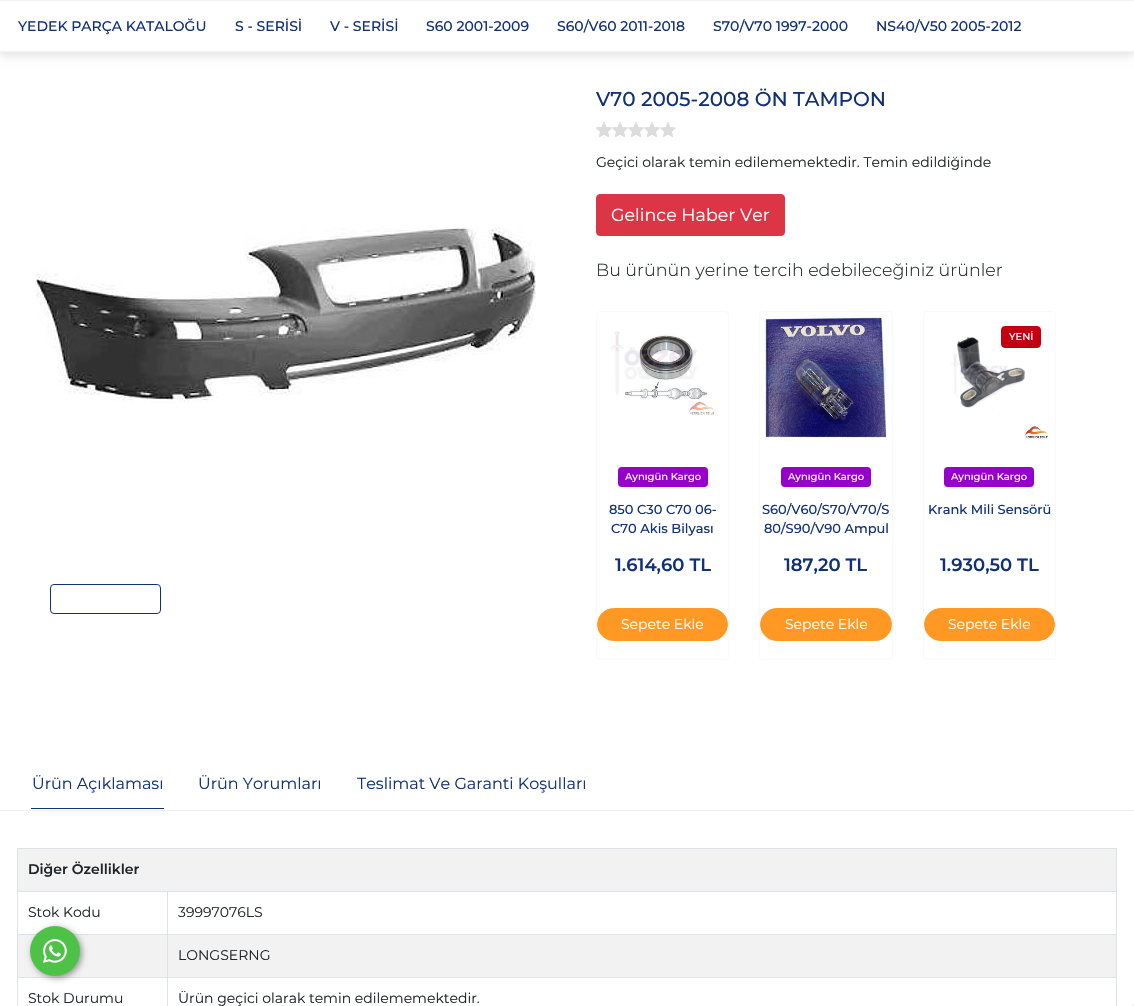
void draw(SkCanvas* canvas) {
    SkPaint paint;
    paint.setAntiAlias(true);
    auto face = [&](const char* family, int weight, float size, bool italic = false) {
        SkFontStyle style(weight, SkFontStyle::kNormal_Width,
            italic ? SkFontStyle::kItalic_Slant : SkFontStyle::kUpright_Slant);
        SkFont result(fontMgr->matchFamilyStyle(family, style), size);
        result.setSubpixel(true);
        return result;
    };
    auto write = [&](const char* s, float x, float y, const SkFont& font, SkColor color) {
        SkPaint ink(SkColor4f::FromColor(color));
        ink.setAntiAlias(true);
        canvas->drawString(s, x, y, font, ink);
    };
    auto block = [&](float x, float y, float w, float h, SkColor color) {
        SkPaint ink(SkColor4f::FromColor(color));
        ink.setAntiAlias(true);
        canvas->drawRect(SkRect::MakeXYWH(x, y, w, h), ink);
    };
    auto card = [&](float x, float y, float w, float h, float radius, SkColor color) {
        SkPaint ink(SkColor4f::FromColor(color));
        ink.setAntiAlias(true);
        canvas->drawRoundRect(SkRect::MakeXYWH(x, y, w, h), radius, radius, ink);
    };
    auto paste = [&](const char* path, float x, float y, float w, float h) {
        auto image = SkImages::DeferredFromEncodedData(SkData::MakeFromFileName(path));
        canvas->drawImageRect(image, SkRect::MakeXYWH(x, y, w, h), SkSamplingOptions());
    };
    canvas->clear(SK_ColorWHITE);
    paint.setColor(SkColorSetARGB(26, 0, 0, 0));
    paint.setMaskFilter(SkMaskFilter::MakeBlur(kNormal_SkBlurStyle, 4));
    canvas->drawRect(SkRect::MakeXYWH(0, 4, 1134, 52), paint);
    paint.setMaskFilter(nullptr);
    block(0, 1, 1134, 50, SK_ColorWHITE);
    block(0, 0, 1134, 1, SkColorSetRGB(240, 242, 245));
    block(0, 51, 1134, 1, SkColorSetRGB(240, 242, 245));
    auto kFont1 = face("Montserrat", 500, 14);
    write("YEDEK PARÇA KATALOĞU", 18, 31, kFont1, SkColorSetRGB(16, 49, 120));
    write("S - SERİSİ", 235, 31, kFont1, SkColorSetRGB(16, 49, 120));
    write("V - SERİSİ", 330, 31, kFont1, SkColorSetRGB(16, 49, 120));
    write("S60 2001-2009", 426, 31, kFont1, SkColorSetRGB(16, 49, 120));
    write("S60/V60 2011-2018", 557, 31, kFont1, SkColorSetRGB(16, 49, 120));
    write("S70/V70 1997-2000", 713, 31, kFont1, SkColorSetRGB(16, 49, 120));
    write("NS40/V50 2005-2012", 876, 31, kFont1, SkColorSetRGB(16, 49, 120));
    paste("pic1.png", 36, 227, 500, 176);
    paint.setStyle(SkPaint::kStroke_Style);
    paint.setStrokeWidth(1);
    paint.setColor(SkColorSetRGB(16, 49, 120));
    canvas->drawRoundRect(SkRect::MakeXYWH(50.5f, 584.5f, 110, 29), 3.5f, 3.5f, paint);
    auto kFont2 = face("Montserrat", 500, 20);
    write("V70 2005-2008 ÖN TAMPON", 596, 106, kFont2, SkColorSetRGB(16, 49, 120));
    paste("pic2.png", 596, 122, 80, 15);
    paste("pic3.png", 596, 122, 80, 15);
    paste("pic4.png", 596, 122, 64, 15);
    paste("pic5.png", 596, 124, 16, 14);
    auto kFont3 = face("Montserrat", 400, 14);
    write("Geçici olarak temin edilememektedir. Temin edildiğinde", 596, 167, kFont3, SkColorSetRGB(33, 37, 41));
    paint.setStyle(SkPaint::kFill_Style);
    paint.setColor(SkColorSetRGB(220, 53, 69));
    canvas->drawRoundRect(SkRect::MakeXYWH(596.5f, 194.5f, 188, 41), 3.5f, 3.5f, paint);
    paint.setStyle(SkPaint::kStroke_Style);
    canvas->drawRoundRect(SkRect::MakeXYWH(596.5f, 194.5f, 188, 41), 3.5f, 3.5f, paint);
    auto kFont4 = face("Montserrat", 400, 17.5f);
    write("Gelince Haber Ver", 611, 221, kFont4, SK_ColorWHITE);
    auto kFont5 = face("Montserrat", 300, 17.5f);
    write("Bu ürünün yerine tercih edebileceğiniz ürünler", 596, 276, kFont5, SkColorSetRGB(33, 37, 41));
    paint.setColor(SkColorSetRGB(248, 249, 250));
    canvas->drawRoundRect(SkRect::MakeXYWH(596.5f, 311.5f, 132, 348), 3.5f, 3.5f, paint);
    paste("pic6.png", 610, 331, 105, 84);
    card(618, 467, 90, 20, 4, SkColorSetRGB(149, 0, 202));
    auto kFont6 = face("Montserrat", 500, 10);
    write("Aynıgün Kargo", 625, 480, kFont6, SK_ColorWHITE);
    auto kFont7 = face("Montserrat", 500, 13);
    write("850 C30 C70 06-", 609, 514, kFont7, SkColorSetRGB(16, 49, 120));
    write("C70 Akis Bilyası", 611, 533, kFont7, SkColorSetRGB(16, 49, 120));
    auto kFont8 = face("Montserrat", 600, 18);
    write("1.614,60 TL", 615, 571, kFont8, SkColorSetRGB(16, 49, 120));
    paint.setStyle(SkPaint::kFill_Style);
    paint.setColor(SkColorSetRGB(255, 153, 35));
    canvas->drawRoundRect(SkRect::MakeXYWH(597.5f, 608.5f, 130, 32), 16, 16, paint);
    paint.setStyle(SkPaint::kStroke_Style);
    canvas->drawRoundRect(SkRect::MakeXYWH(597.5f, 608.5f, 130, 32), 16, 16, paint);
    write("Sepete Ekle", 621, 629, kFont3, SK_ColorWHITE);
    paint.setColor(SkColorSetRGB(248, 249, 250));
    canvas->drawRoundRect(SkRect::MakeXYWH(759.5f, 311.5f, 133, 348), 3.5f, 3.5f, paint);
    paste("pic7.png", 764, 316, 123, 122);
    card(781, 467, 90, 20, 4, SkColorSetRGB(149, 0, 202));
    write("Aynıgün Kargo", 788, 480, kFont6, SK_ColorWHITE);
    write("S60/V60/S70/V70/S", 762, 514, kFont7, SkColorSetRGB(16, 49, 120));
    write("80/S90/V90 Ampul", 764, 533, kFont7, SkColorSetRGB(16, 49, 120));
    write("187,20 TL", 784, 571, kFont8, SkColorSetRGB(16, 49, 120));
    paint.setStyle(SkPaint::kFill_Style);
    paint.setColor(SkColorSetRGB(255, 153, 35));
    canvas->drawRoundRect(SkRect::MakeXYWH(760.5f, 608.5f, 131, 32), 16, 16, paint);
    paint.setStyle(SkPaint::kStroke_Style);
    canvas->drawRoundRect(SkRect::MakeXYWH(760.5f, 608.5f, 131, 32), 16, 16, paint);
    write("Sepete Ekle", 785, 629, kFont3, SK_ColorWHITE);
    paint.setColor(SkColorSetRGB(248, 249, 250));
    canvas->drawRoundRect(SkRect::MakeXYWH(923.5f, 311.5f, 132, 348), 3.5f, 3.5f, paint);
    paste("pic8.png", 951, 336, 97, 103);
    paint.setStyle(SkPaint::kFill_Style);
    paint.setColor(SkColorSetRGB(195, 0, 17));
    canvas->drawRoundRect(SkRect::MakeXYWH(1001.5f, 326.5f, 39, 21), 3.5f, 3.5f, paint);
    paint.setStyle(SkPaint::kStroke_Style);
    canvas->drawRoundRect(SkRect::MakeXYWH(1001.5f, 326.5f, 39, 21), 3.5f, 3.5f, paint);
    write("YENİ", 1009, 340, kFont6, SK_ColorWHITE);
    card(944, 467, 90, 20, 4, SkColorSetRGB(149, 0, 202));
    write("Aynıgün Kargo", 951, 480, kFont6, SK_ColorWHITE);
    write("Krank Mili Sensörü", 928, 514, kFont7, SkColorSetRGB(16, 49, 120));
    write("1.930,50 TL", 940, 571, kFont8, SkColorSetRGB(16, 49, 120));
    paint.setStyle(SkPaint::kFill_Style);
    paint.setColor(SkColorSetRGB(255, 153, 35));
    canvas->drawRoundRect(SkRect::MakeXYWH(924.5f, 608.5f, 130, 32), 16, 16, paint);
    paint.setStyle(SkPaint::kStroke_Style);
    canvas->drawRoundRect(SkRect::MakeXYWH(924.5f, 608.5f, 130, 32), 16, 16, paint);
    write("Sepete Ekle", 948, 629, kFont3, SK_ColorWHITE);
    auto kFont9 = face("Montserrat", 400, 16);
    write("Ürün Açıklaması", 32, 789, kFont9, SkColorSetRGB(16, 49, 120));
    block(31, 808, 133, 1, SkColorSetRGB(16, 49, 120));
    write("Ürün Yorumları", 198, 789, kFont9, SkColorSetRGB(16, 49, 120));
    write("Teslimat Ve Garanti Koşulları", 357, 789, kFont9, SkColorSetRGB(16, 49, 120));
    block(0, 810, 1134, 1, SkColorSetRGB(238, 238, 238));
    block(17, 848, 1100, 1, SkColorSetRGB(222, 226, 230));
    block(1116, 848, 1, 158, SkColorSetRGB(222, 226, 230));
    block(17, 848, 1, 158, SkColorSetRGB(222, 226, 230));
    block(18, 849, 1098, 42, SkColorSetRGB(242, 242, 242));
    auto kFont10 = face("Montserrat", 600, 14);
    write("Diğer Özellikler", 28, 874, kFont10, SkColorSetRGB(33, 37, 41));
    block(167, 891, 950, 1, SkColorSetRGB(222, 226, 230));
    block(167, 934, 950, 1, SkColorSetRGB(222, 226, 230));
    block(18, 935, 1098, 42, SkColorSetRGB(242, 242, 242));
    block(167, 977, 950, 1, SkColorSetRGB(222, 226, 230));
    block(167, 977, 1, 29, SkColorSetRGB(222, 226, 230));
    block(17, 977, 151, 1, SkColorSetRGB(222, 226, 230));
    block(167, 934, 1, 44, SkColorSetRGB(222, 226, 230));
    block(17, 934, 151, 1, SkColorSetRGB(222, 226, 230));
    block(167, 891, 1, 44, SkColorSetRGB(222, 226, 230));
    block(17, 891, 151, 1, SkColorSetRGB(222, 226, 230));
    write("Stok Kodu", 28, 917, kFont3, SkColorSetRGB(33, 37, 41));
    write("39997076LS", 178, 917, kFont3, SkColorSetRGB(33, 37, 41));
    write("LONGSERNG", 178, 960, kFont3, SkColorSetRGB(33, 37, 41));
    write("Stok Durumu", 28, 1003, kFont3, SkColorSetRGB(33, 37, 41));
    write("Ürün geçici olarak temin edilememektedir.", 178, 1003, kFont3, SkColorSetRGB(33, 37, 41));
    paint.setStyle(SkPaint::kFill_Style);
    paint.setColor(SkColorSetARGB(102, 0, 0, 0));
    paint.setMaskFilter(SkMaskFilter::MakeBlur(kNormal_SkBlurStyle, 3));
    canvas->drawRoundRect(SkRect::MakeXYWH(32, 928, 50, 50), 25, 25, paint);
    paint.setMaskFilter(nullptr);
    paint.setColor(SkColorSetRGB(77, 194, 71));
    canvas->drawCircle(55, 951, 25, paint);
    paste("pic9.png", 43, 939, 24, 24);
    block(1132, 1004, 2, 2, SkColorSetRGB(245, 245, 245));
}
